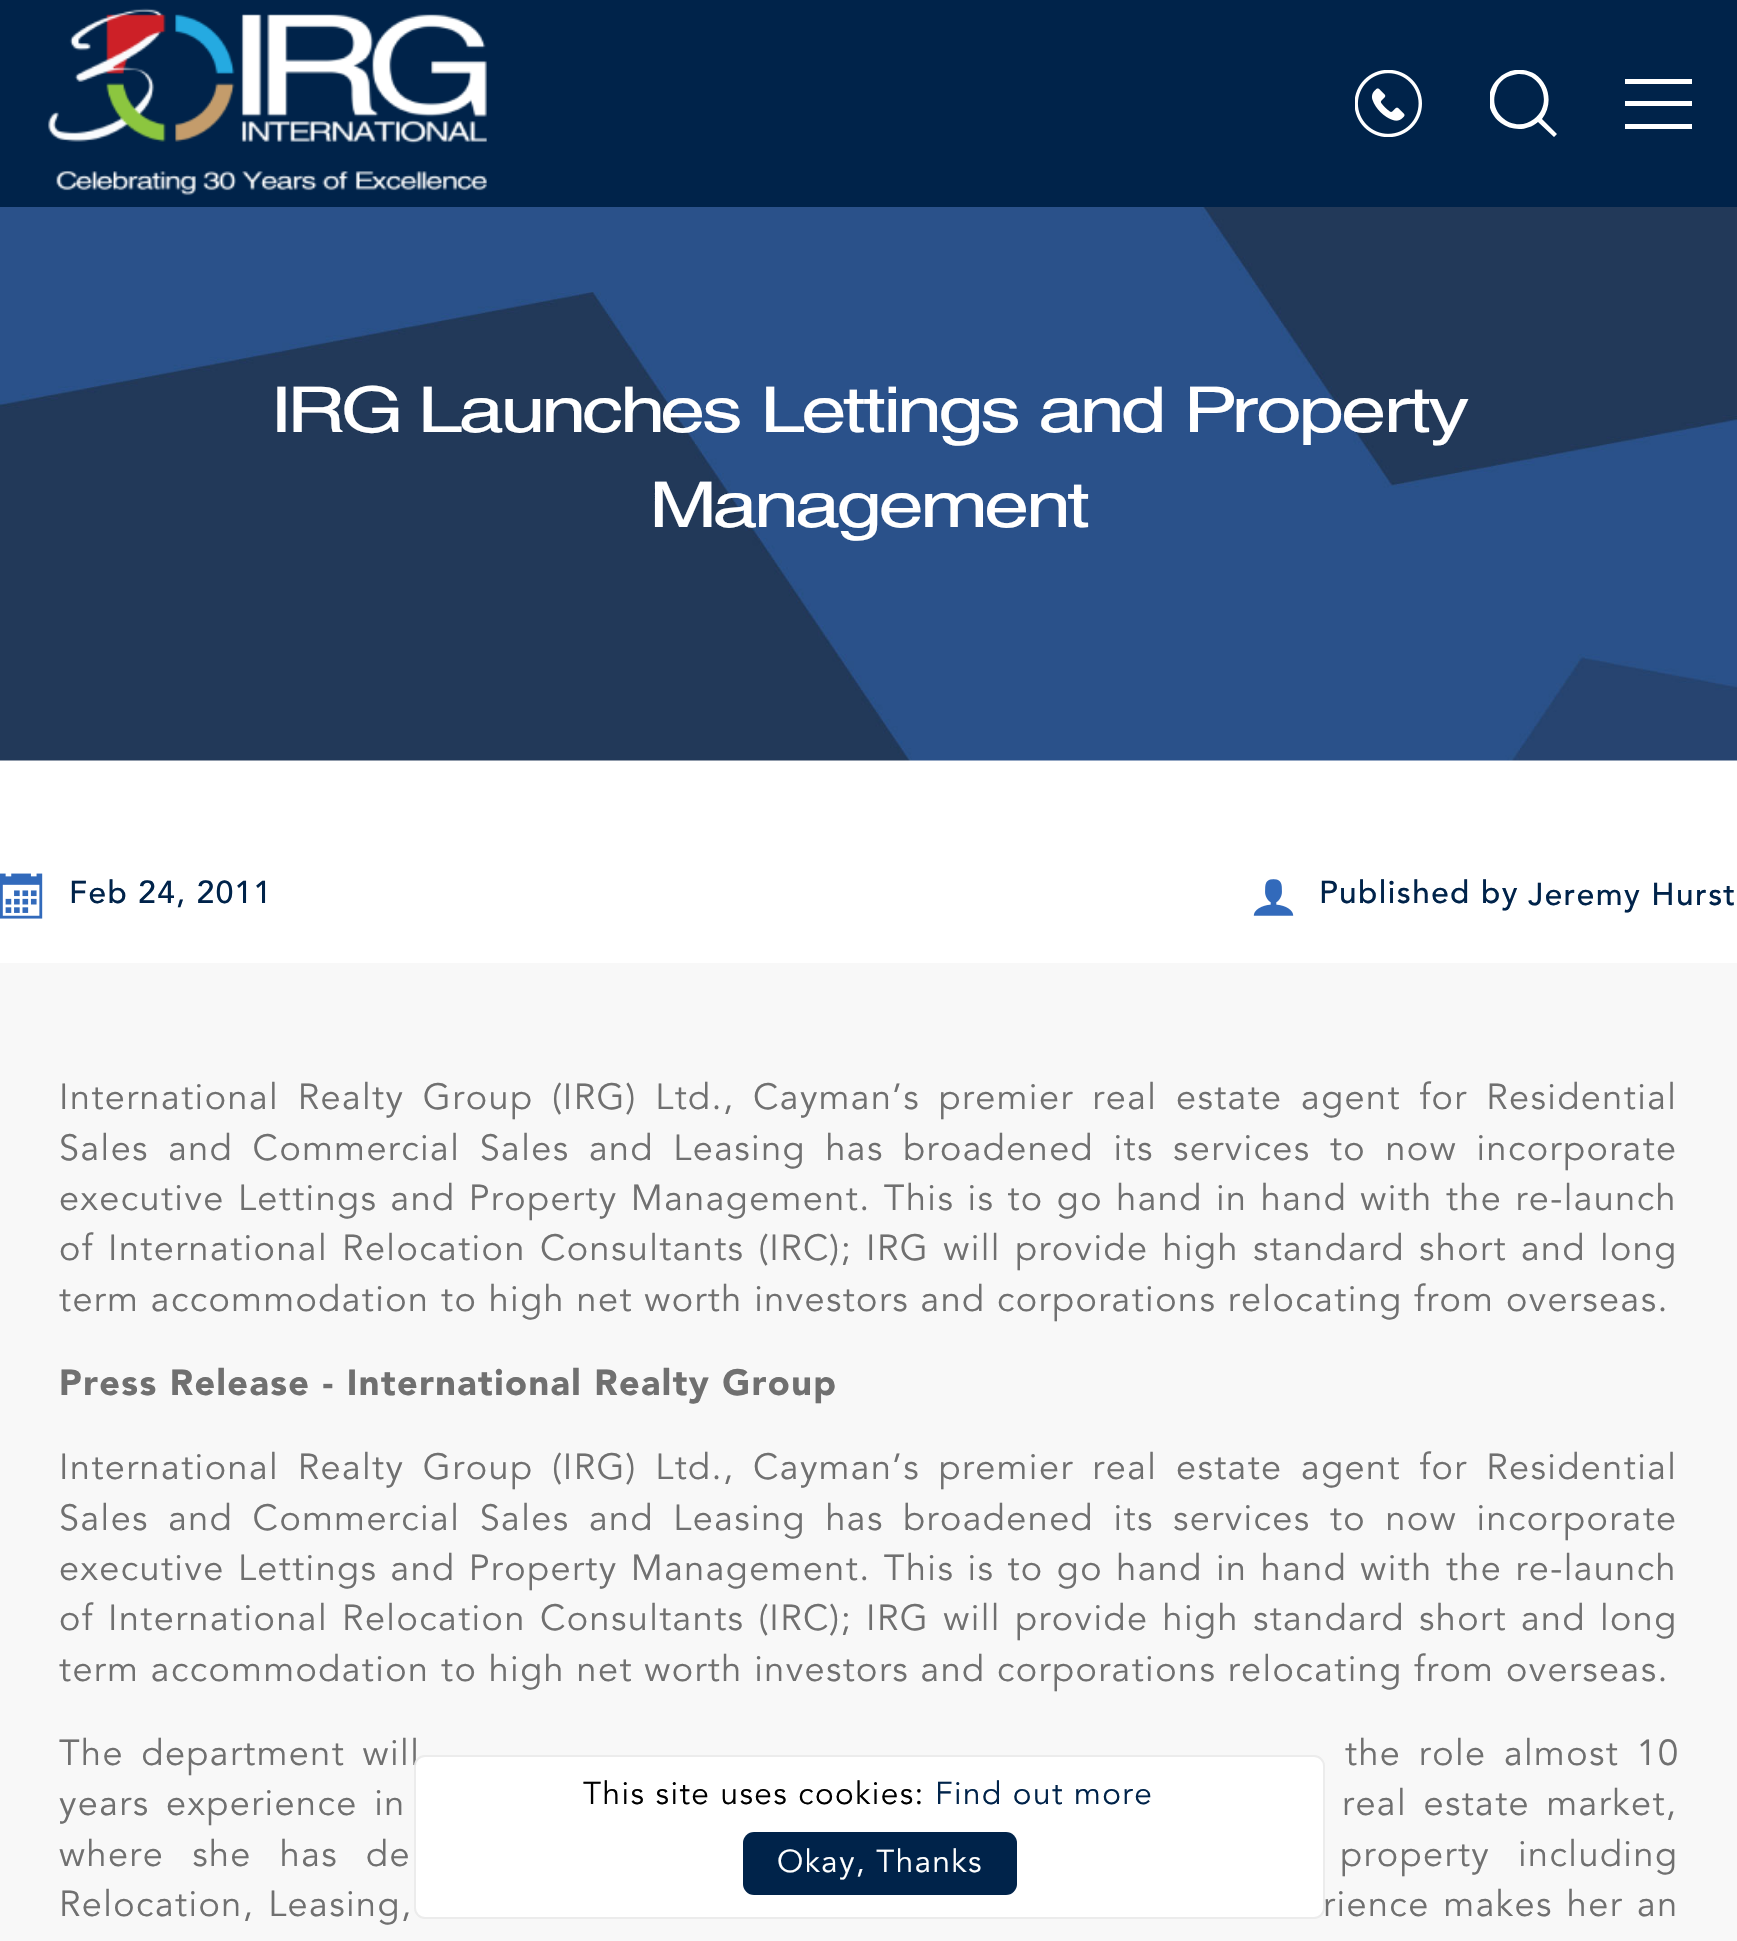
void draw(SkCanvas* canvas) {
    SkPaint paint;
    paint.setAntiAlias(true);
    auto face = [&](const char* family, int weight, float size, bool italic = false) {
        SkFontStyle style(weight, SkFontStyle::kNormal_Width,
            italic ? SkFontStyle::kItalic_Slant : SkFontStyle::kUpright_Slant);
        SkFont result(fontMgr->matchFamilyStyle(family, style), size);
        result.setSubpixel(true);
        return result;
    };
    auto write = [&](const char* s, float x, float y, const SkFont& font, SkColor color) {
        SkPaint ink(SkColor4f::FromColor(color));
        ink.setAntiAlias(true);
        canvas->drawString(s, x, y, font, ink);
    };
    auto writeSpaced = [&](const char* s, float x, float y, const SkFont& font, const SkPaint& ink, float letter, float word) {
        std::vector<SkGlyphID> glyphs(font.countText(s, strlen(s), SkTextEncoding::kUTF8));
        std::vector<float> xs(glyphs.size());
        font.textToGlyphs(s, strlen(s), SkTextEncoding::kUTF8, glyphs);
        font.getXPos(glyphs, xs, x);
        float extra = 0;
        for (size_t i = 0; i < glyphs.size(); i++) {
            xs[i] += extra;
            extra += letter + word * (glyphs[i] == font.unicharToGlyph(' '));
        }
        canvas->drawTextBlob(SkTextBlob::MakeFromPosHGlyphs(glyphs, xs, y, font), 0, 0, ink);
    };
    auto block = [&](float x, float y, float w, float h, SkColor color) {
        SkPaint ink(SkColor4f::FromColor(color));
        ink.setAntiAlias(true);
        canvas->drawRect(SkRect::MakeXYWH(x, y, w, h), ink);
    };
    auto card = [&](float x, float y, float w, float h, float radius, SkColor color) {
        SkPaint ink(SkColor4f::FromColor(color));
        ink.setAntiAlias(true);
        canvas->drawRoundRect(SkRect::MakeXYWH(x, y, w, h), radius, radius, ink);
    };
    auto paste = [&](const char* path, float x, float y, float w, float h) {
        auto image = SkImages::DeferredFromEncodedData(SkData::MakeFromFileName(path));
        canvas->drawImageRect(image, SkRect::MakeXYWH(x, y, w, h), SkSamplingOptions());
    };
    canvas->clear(SK_ColorWHITE);
    block(0, 0, 1737, 207, SkColorSetRGB(0, 35, 74));
    paste("pic1.png", 48, 8, 439, 188);
    paste("pic2.png", 1355, 70, 67, 67);
    canvas->save();
    canvas->clipRect(SkRect::MakeXYWH(1490, 70, 67, 67));
    paint.setColor(SK_ColorWHITE);
    canvas->drawPath(SkPathBuilder().moveTo(1542, 119).cubicTo(1553, 105, 1550, 84, 1535, 74).cubicTo(1526, 69, 1515, 68, 1506, 73).cubicTo(1500, 76, 1495, 81, 1492, 87).cubicTo(1478, 116, 1514, 142, 1538, 122).lineTo(1554, 137).lineTo(1557, 134).close().moveTo(1534, 119).cubicTo(1515, 134, 1487, 114, 1496, 91).cubicTo(1497, 86, 1500, 82, 1504, 79).cubicTo(1508, 76, 1513, 75, 1518, 74).cubicTo(1543, 73, 1553, 105, 1534, 119).close().detach(), paint);
    canvas->restore();
    block(1625, 79, 67, 5, SK_ColorWHITE);
    block(1625, 101, 67, 5, SK_ColorWHITE);
    block(1625, 124, 67, 5, SK_ColorWHITE);
    paste("pic3.png", 0, 207, 1737, 554);
    auto kFont1 = face("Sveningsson", 400, 63);
    write("IRG Launches Lettings and Property", 270, 432, kFont1, SK_ColorWHITE);
    write("Management", 649, 527, kFont1, SK_ColorWHITE);
    paste("pic4.png", 0, 873, 43, 46);
    auto kFont2 = face("Avenir", 500, 31.5f);
    paint.setColor(SkColorSetRGB(0, 35, 74));
    writeSpaced("Feb 24, 2011", 69, 903, kFont2, paint, 1.45f, 0);
    paste("pic5.png", 1253, 879, 41, 37);
    writeSpaced("Published by", 1319, 903, kFont2, paint, 1.45f, 0);
    writeSpaced("Jeremy Hurst", 1528, 905, kFont2, paint, 1.45f, 0);
    block(0, 963, 1737, 978, SkColorSetRGB(248, 248, 248));
    auto kFont3 = face("Avenir", 400, 36);
    paint.setColor(SkColorSetRGB(112, 112, 112));
    writeSpaced("International Realty Group (IRG) Ltd., Cayman’s premier real estate agent for Residential", 59, 1109, kFont3, paint, 1.45f, 7.1f);
    writeSpaced("Sales and Commercial Sales and Leasing has broadened its services to now incorporate", 59, 1160, kFont3, paint, 1.45f, 7.9f);
    writeSpaced("executive Lettings and Property Management. This is to go hand in hand with the re-launch", 59, 1210, kFont3, paint, 1.45f, 1.75f);
    writeSpaced("of International Relocation Consultants (IRC); IRG will provide high standard short and long", 59, 1260, kFont3, paint, 1.45f, 2.6f);
    writeSpaced("term accommodation to high net worth investors and corporations relocating from overseas.", 59, 1311, kFont3, paint, 1.45f, 0);
    auto kFont4 = face("Avenir", 900, 36);
    writeSpaced("Press Release - International Realty Group", 59, 1395, kFont4, paint, 1.45f, 0);
    writeSpaced("International Realty Group (IRG) Ltd., Cayman’s premier real estate agent for Residential", 59, 1479, kFont3, paint, 1.45f, 7.1f);
    writeSpaced("Sales and Commercial Sales and Leasing has broadened its services to now incorporate", 59, 1530, kFont3, paint, 1.45f, 7.9f);
    writeSpaced("executive Lettings and Property Management. This is to go hand in hand with the re-launch", 59, 1580, kFont3, paint, 1.45f, 1.75f);
    writeSpaced("of International Relocation Consultants (IRC); IRG will provide high standard short and long", 59, 1630, kFont3, paint, 1.45f, 2.6f);
    writeSpaced("term accommodation to high net worth investors and corporations relocating from overseas.", 59, 1681, kFont3, paint, 1.45f, 0);
    writeSpaced("The department will", 59, 1765, kFont3, paint, 1.45f, 6);
    writeSpaced("the role almost 10", 1345, 1765, kFont3, paint, 1.45f, 6);
    writeSpaced("years experience in", 59, 1815, kFont3, paint, 1.45f, 5);
    writeSpaced("real estate market,", 1342, 1815, kFont3, paint, 1.45f, 5);
    writeSpaced("where she has de", 59, 1866, kFont3, paint, 1.45f, 16.5f);
    writeSpaced("property including", 1340, 1866, kFont3, paint, 1.45f, 16.5f);
    writeSpaced("Relocation, Leasing,", 59, 1916, kFont3, paint, 1.45f, 2.5f);
    writeSpaced("rience makes her an", 1323, 1916, kFont3, paint, 1.45f, 2.5f);
    card(414, 1755, 911, 164, 11, SkColorSetARGB(230, 255, 255, 255));
    paint.setStyle(SkPaint::kStroke_Style);
    paint.setStrokeWidth(2);
    paint.setColor(SkColorSetARGB(26, 70, 71, 73));
    canvas->drawRoundRect(SkRect::MakeXYWH(415, 1756, 909, 162), 10, 10, paint);
    auto kFont5 = face("Avenir", 400, 31.5f);
    paint.setStyle(SkPaint::kFill_Style);
    paint.setColor(SK_ColorBLACK);
    writeSpaced("This site uses cookies:", 583, 1804, kFont5, paint, 1.45f, 0);
    paint.setColor(SkColorSetRGB(0, 35, 74));
    writeSpaced("Find out more", 935, 1804, kFont5, paint, 1.45f, 0);
    card(743, 1832, 274, 63, 11, SkColorSetRGB(0, 35, 74));
    paint.setColor(SK_ColorWHITE);
    writeSpaced("Okay, Thanks", 777, 1872, kFont5, paint, 1.45f, 0);
}
